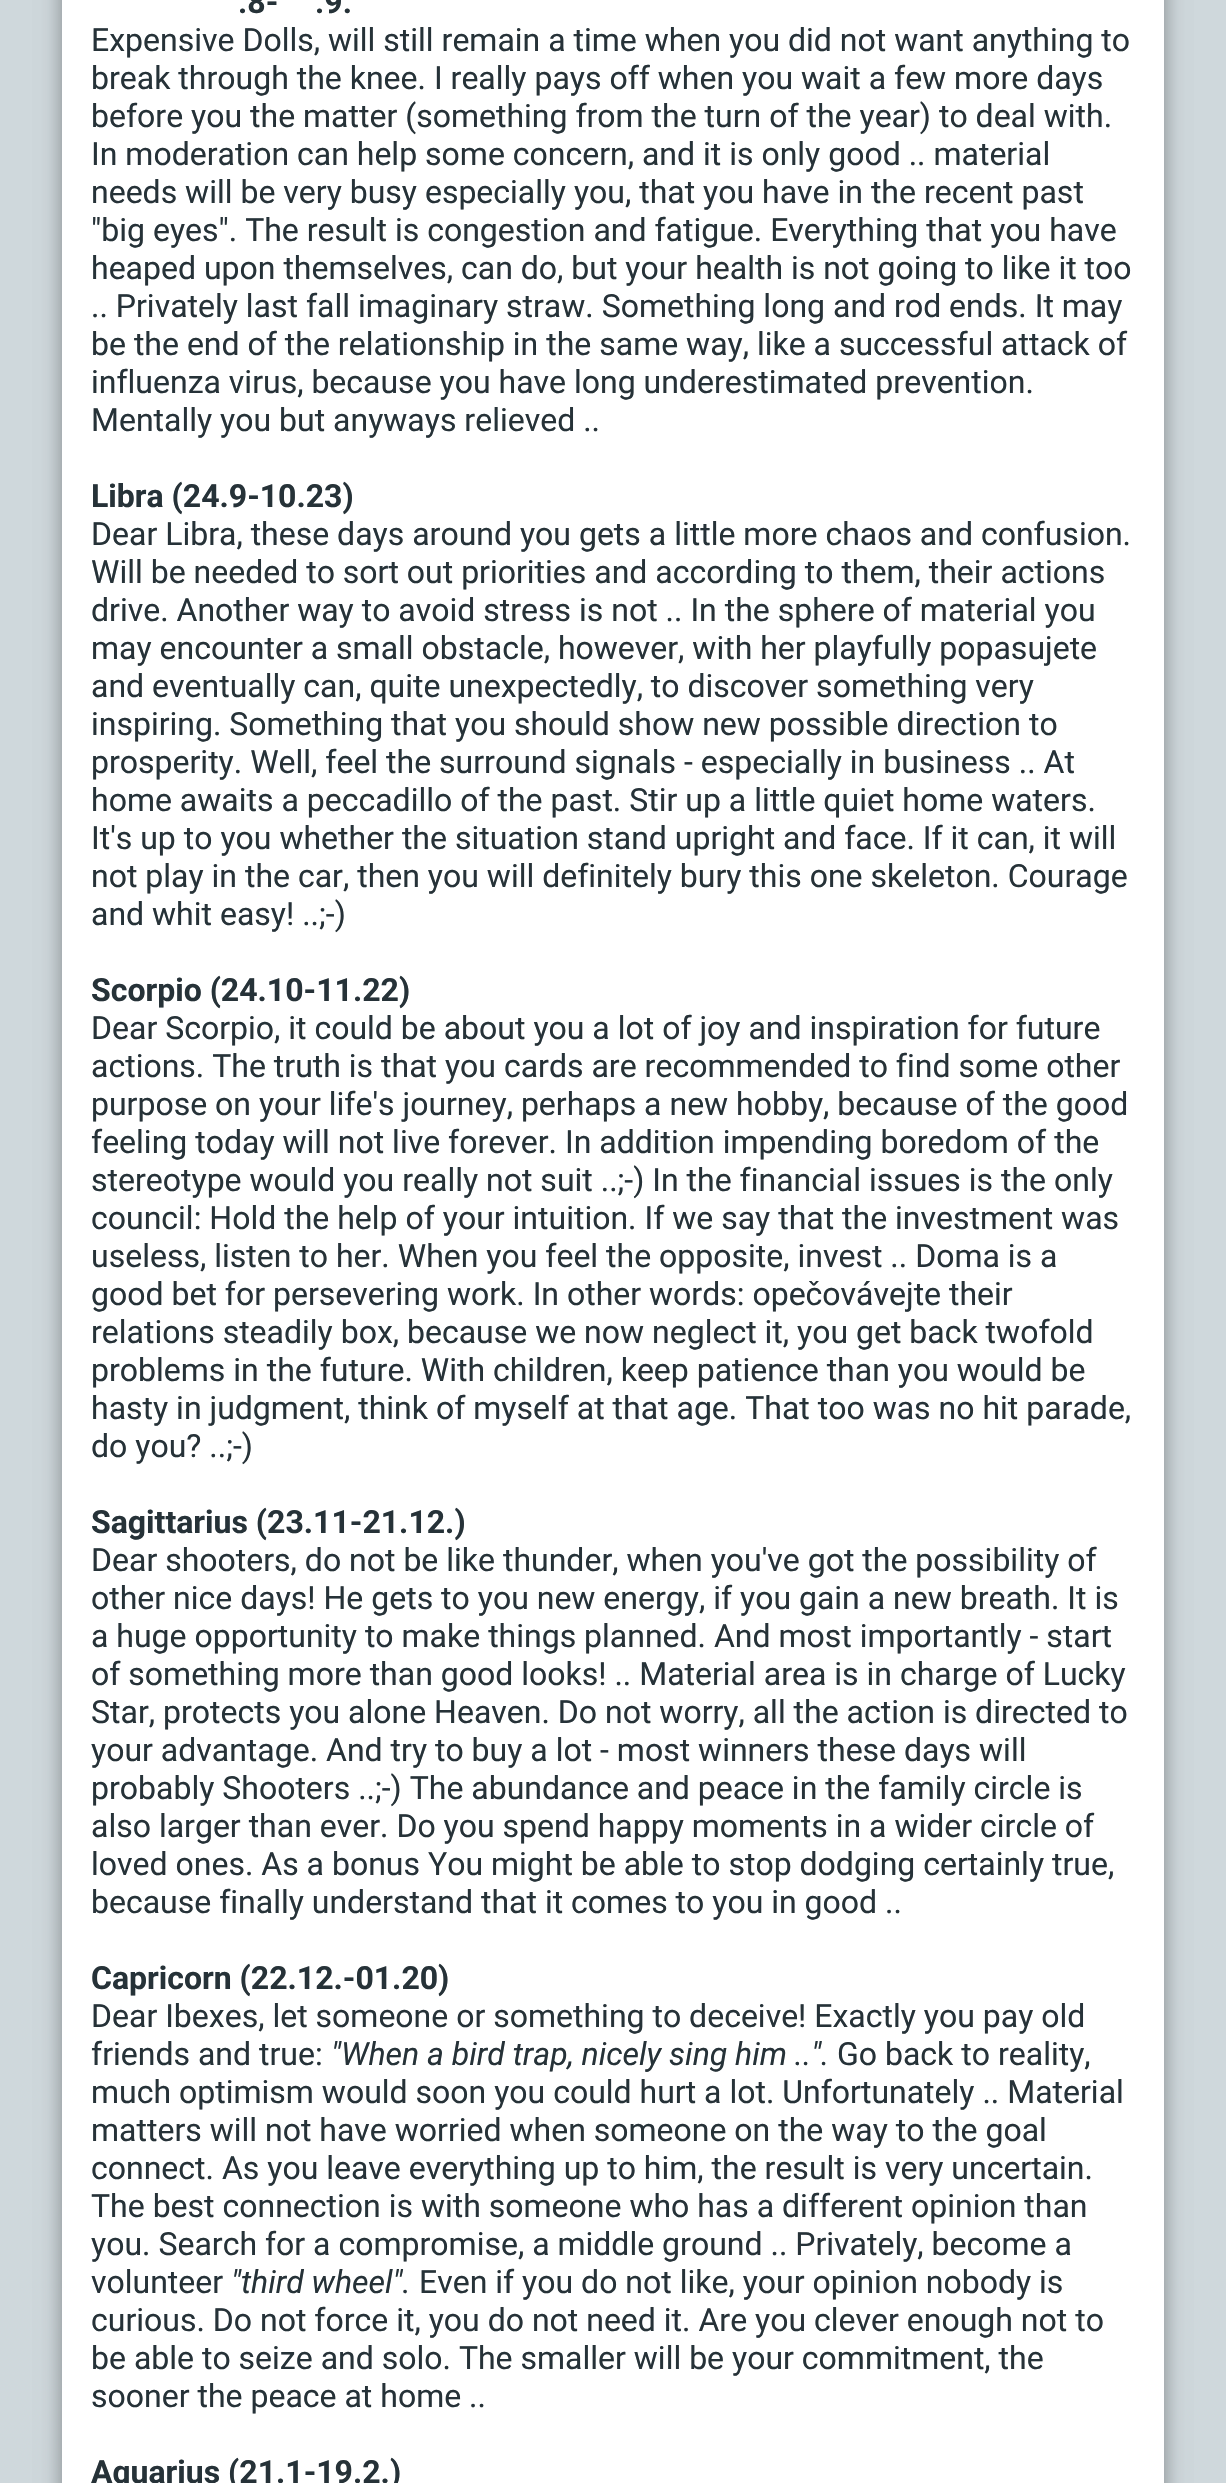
void draw(SkCanvas* canvas) {
    SkPaint paint;
    paint.setAntiAlias(true);
    auto face = [&](const char* family, int weight, float size, bool italic = false) {
        SkFontStyle style(weight, SkFontStyle::kNormal_Width,
            italic ? SkFontStyle::kItalic_Slant : SkFontStyle::kUpright_Slant);
        SkFont result(fontMgr->matchFamilyStyle(family, style), size);
        result.setSubpixel(true);
        return result;
    };
    auto write = [&](const char* s, float x, float y, const SkFont& font, SkColor color) {
        SkPaint ink(SkColor4f::FromColor(color));
        ink.setAntiAlias(true);
        canvas->drawString(s, x, y, font, ink);
    };
    auto block = [&](float x, float y, float w, float h, SkColor color) {
        SkPaint ink(SkColor4f::FromColor(color));
        ink.setAntiAlias(true);
        canvas->drawRect(SkRect::MakeXYWH(x, y, w, h), ink);
    };
    canvas->clear(SkColorSetRGB(207, 216, 220));
    paint.setColor(SkColorSetARGB(41, 0, 0, 0));
    paint.setMaskFilter(SkMaskFilter::MakeBlur(kNormal_SkBlurStyle, 10));
    canvas->drawRect(SkRect::MakeXYWH(62, -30, 1102, 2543), paint);
    paint.setMaskFilter(nullptr);
    paint.setColor(SkColorSetARGB(59, 0, 0, 0));
    paint.setMaskFilter(SkMaskFilter::MakeBlur(kNormal_SkBlurStyle, 10));
    canvas->drawRect(SkRect::MakeXYWH(62, -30, 1102, 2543), paint);
    paint.setMaskFilter(nullptr);
    block(62, 0, 1102, 2483, SK_ColorWHITE);
    auto kFont1 = face("Roboto", 700, 32);
    write(".8-", 238, 13, kFont1, SkColorSetRGB(38, 50, 56));
    write(".9.", 315, 13, kFont1, SkColorSetRGB(38, 50, 56));
    auto kFont2 = face("Roboto", 400, 32);
    write("Expensive Dolls, will still remain a time when you did not want anything to", 91, 51, kFont2, SkColorSetRGB(38, 50, 56));
    write("break through the knee. I really pays off when you wait a few more days", 91, 89, kFont2, SkColorSetRGB(38, 50, 56));
    write("before you the matter (something from the turn of the year) to deal with.", 91, 127, kFont2, SkColorSetRGB(38, 50, 56));
    write("In moderation can help some concern, and it is only good .. material", 91, 165, kFont2, SkColorSetRGB(38, 50, 56));
    write("needs will be very busy especially you, that you have in the recent past", 91, 203, kFont2, SkColorSetRGB(38, 50, 56));
    write("\"big eyes\". The result is congestion and fatigue. Everything that you have", 91, 241, kFont2, SkColorSetRGB(38, 50, 56));
    write("heaped upon themselves, can do, but your health is not going to like it too", 91, 279, kFont2, SkColorSetRGB(38, 50, 56));
    write(".. Privately last fall imaginary straw. Something long and rod ends. It may", 91, 317, kFont2, SkColorSetRGB(38, 50, 56));
    write("be the end of the relationship in the same way, like a successful attack of", 91, 355, kFont2, SkColorSetRGB(38, 50, 56));
    write("influenza virus, because you have long underestimated prevention.", 91, 393, kFont2, SkColorSetRGB(38, 50, 56));
    write("Mentally you but anyways relieved ..", 91, 431, kFont2, SkColorSetRGB(38, 50, 56));
    write("Libra (24.9-10.23)", 91, 507, kFont1, SkColorSetRGB(38, 50, 56));
    write("Dear Libra, these days around you gets a little more chaos and confusion.", 91, 545, kFont2, SkColorSetRGB(38, 50, 56));
    write("Will be needed to sort out priorities and according to them, their actions", 91, 583, kFont2, SkColorSetRGB(38, 50, 56));
    write("drive. Another way to avoid stress is not .. In the sphere of material you", 91, 621, kFont2, SkColorSetRGB(38, 50, 56));
    write("may encounter a small obstacle, however, with her playfully popasujete", 91, 659, kFont2, SkColorSetRGB(38, 50, 56));
    write("and eventually can, quite unexpectedly, to discover something very", 91, 697, kFont2, SkColorSetRGB(38, 50, 56));
    write("inspiring. Something that you should show new possible direction to", 91, 735, kFont2, SkColorSetRGB(38, 50, 56));
    write("prosperity. Well, feel the surround signals - especially in business .. At", 91, 773, kFont2, SkColorSetRGB(38, 50, 56));
    write("home awaits a peccadillo of the past. Stir up a little quiet home waters.", 91, 811, kFont2, SkColorSetRGB(38, 50, 56));
    write("It's up to you whether the situation stand upright and face. If it can, it will", 91, 849, kFont2, SkColorSetRGB(38, 50, 56));
    write("not play in the car, then you will definitely bury this one skeleton. Courage", 91, 887, kFont2, SkColorSetRGB(38, 50, 56));
    write("and whit easy! ..;-)", 91, 925, kFont2, SkColorSetRGB(38, 50, 56));
    write("Scorpio (24.10-11.22)", 91, 1001, kFont1, SkColorSetRGB(38, 50, 56));
    write("Dear Scorpio, it could be about you a lot of joy and inspiration for future", 91, 1039, kFont2, SkColorSetRGB(38, 50, 56));
    write("actions. The truth is that you cards are recommended to find some other", 91, 1077, kFont2, SkColorSetRGB(38, 50, 56));
    write("purpose on your life's journey, perhaps a new hobby, because of the good", 91, 1115, kFont2, SkColorSetRGB(38, 50, 56));
    write("feeling today will not live forever. In addition impending boredom of the", 91, 1153, kFont2, SkColorSetRGB(38, 50, 56));
    write("stereotype would you really not suit ..;-) In the financial issues is the only", 91, 1191, kFont2, SkColorSetRGB(38, 50, 56));
    write("council: Hold the help of your intuition. If we say that the investment was", 91, 1229, kFont2, SkColorSetRGB(38, 50, 56));
    write("useless, listen to her. When you feel the opposite, invest .. Doma is a", 91, 1267, kFont2, SkColorSetRGB(38, 50, 56));
    write("good bet for persevering work. In other words: opečovávejte their", 91, 1305, kFont2, SkColorSetRGB(38, 50, 56));
    write("relations steadily box, because we now neglect it, you get back twofold", 91, 1343, kFont2, SkColorSetRGB(38, 50, 56));
    write("problems in the future. With children, keep patience than you would be", 91, 1381, kFont2, SkColorSetRGB(38, 50, 56));
    write("hasty in judgment, think of myself at that age. That too was no hit parade,", 91, 1419, kFont2, SkColorSetRGB(38, 50, 56));
    write("do you? ..;-)", 91, 1457, kFont2, SkColorSetRGB(38, 50, 56));
    write("Sagittarius (23.11-21.12.)", 91, 1533, kFont1, SkColorSetRGB(38, 50, 56));
    write("Dear shooters, do not be like thunder, when you've got the possibility of", 91, 1571, kFont2, SkColorSetRGB(38, 50, 56));
    write("other nice days! He gets to you new energy, if you gain a new breath. It is", 91, 1609, kFont2, SkColorSetRGB(38, 50, 56));
    write("a huge opportunity to make things planned. And most importantly - start", 91, 1647, kFont2, SkColorSetRGB(38, 50, 56));
    write("of something more than good looks! .. Material area is in charge of Lucky", 91, 1685, kFont2, SkColorSetRGB(38, 50, 56));
    write("Star, protects you alone Heaven. Do not worry, all the action is directed to", 91, 1723, kFont2, SkColorSetRGB(38, 50, 56));
    write("your advantage. And try to buy a lot - most winners these days will", 91, 1761, kFont2, SkColorSetRGB(38, 50, 56));
    write("probably Shooters ..;-) The abundance and peace in the family circle is", 91, 1799, kFont2, SkColorSetRGB(38, 50, 56));
    write("also larger than ever. Do you spend happy moments in a wider circle of", 91, 1837, kFont2, SkColorSetRGB(38, 50, 56));
    write("loved ones. As a bonus You might be able to stop dodging certainly true,", 91, 1875, kFont2, SkColorSetRGB(38, 50, 56));
    write("because finally understand that it comes to you in good ..", 91, 1913, kFont2, SkColorSetRGB(38, 50, 56));
    write("Capricorn (22.12.-01.20)", 91, 1989, kFont1, SkColorSetRGB(38, 50, 56));
    write("Dear Ibexes, let someone or something to deceive! Exactly you pay old", 91, 2027, kFont2, SkColorSetRGB(38, 50, 56));
    write("friends and true:", 91, 2065, kFont2, SkColorSetRGB(38, 50, 56));
    auto kFont3 = face("Roboto", 400, 32, true);
    write("\"When a bird trap, nicely sing him ..\".", 331, 2065, kFont3, SkColorSetRGB(38, 50, 56));
    write("Go back to reality,", 837, 2065, kFont2, SkColorSetRGB(38, 50, 56));
    write("much optimism would soon you could hurt a lot. Unfortunately .. Material", 91, 2103, kFont2, SkColorSetRGB(38, 50, 56));
    write("matters will not have worried when someone on the way to the goal", 91, 2141, kFont2, SkColorSetRGB(38, 50, 56));
    write("connect. As you leave everything up to him, the result is very uncertain.", 91, 2179, kFont2, SkColorSetRGB(38, 50, 56));
    write("The best connection is with someone who has a different opinion than", 91, 2217, kFont2, SkColorSetRGB(38, 50, 56));
    write("you. Search for a compromise, a middle ground .. Privately, become a", 91, 2255, kFont2, SkColorSetRGB(38, 50, 56));
    write("volunteer", 91, 2293, kFont2, SkColorSetRGB(38, 50, 56));
    write("\"third wheel\".", 231, 2293, kFont3, SkColorSetRGB(38, 50, 56));
    write("Even if you do not like, your opinion nobody is", 419, 2293, kFont2, SkColorSetRGB(38, 50, 56));
    write("curious. Do not force it, you do not need it. Are you clever enough not to", 91, 2331, kFont2, SkColorSetRGB(38, 50, 56));
    write("be able to seize and solo. The smaller will be your commitment, the", 91, 2369, kFont2, SkColorSetRGB(38, 50, 56));
    write("sooner the peace at home ..", 91, 2407, kFont2, SkColorSetRGB(38, 50, 56));
    write("Aquarius (21.1-19.2.)", 91, 2483, kFont1, SkColorSetRGB(38, 50, 56));
}
